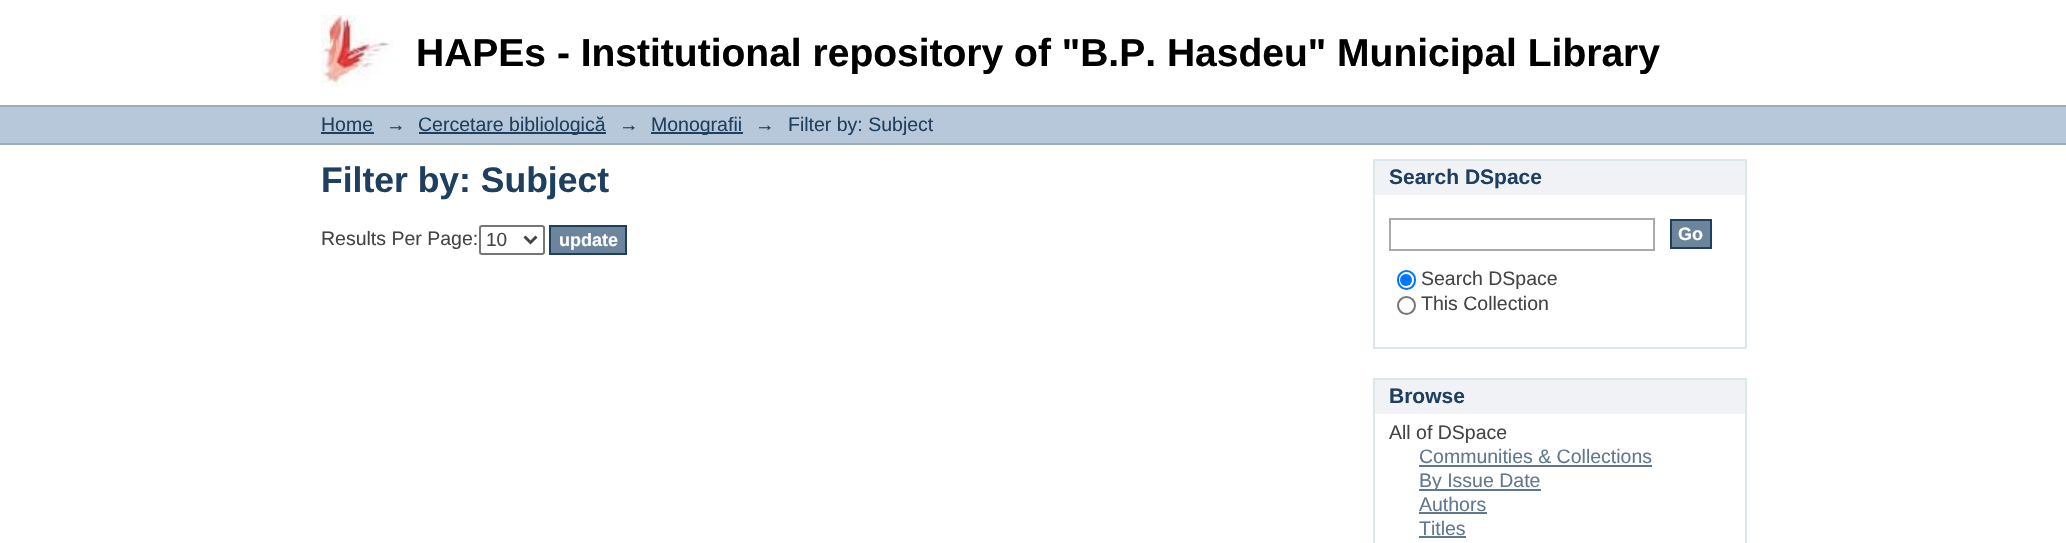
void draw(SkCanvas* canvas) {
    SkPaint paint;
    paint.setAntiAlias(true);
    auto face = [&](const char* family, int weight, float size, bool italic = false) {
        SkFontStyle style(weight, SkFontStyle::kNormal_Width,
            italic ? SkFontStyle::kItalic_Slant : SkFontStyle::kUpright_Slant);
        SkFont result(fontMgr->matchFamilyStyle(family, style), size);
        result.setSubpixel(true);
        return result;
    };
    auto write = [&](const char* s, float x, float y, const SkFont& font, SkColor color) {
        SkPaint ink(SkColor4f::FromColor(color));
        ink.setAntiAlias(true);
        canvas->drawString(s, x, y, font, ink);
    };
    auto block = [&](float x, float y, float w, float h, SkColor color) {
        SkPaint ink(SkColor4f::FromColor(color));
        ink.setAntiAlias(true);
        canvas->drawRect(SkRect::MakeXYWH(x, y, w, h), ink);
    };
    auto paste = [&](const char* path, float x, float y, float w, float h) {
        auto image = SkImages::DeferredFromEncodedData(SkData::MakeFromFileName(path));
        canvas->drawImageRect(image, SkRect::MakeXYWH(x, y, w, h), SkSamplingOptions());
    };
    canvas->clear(SK_ColorWHITE);
    paste("pic1.png", 321, 15, 72, 72);
    auto kFont1 = face("Liberation Sans", 700, 39);
    write("HAPEs - Institutional repository of \"B.P. Hasdeu\" Municipal Library", 416, 66, kFont1, SK_ColorBLACK);
    block(0, 107, 2066, 36, SkColorSetRGB(182, 200, 217));
    block(0, 105, 2066, 2, SkColorSetRGB(156, 172, 186));
    block(0, 143, 2066, 2, SkColorSetRGB(156, 172, 186));
    auto kFont2 = face("Liberation Sans", 400, 19.5f);
    write("Home", 321, 131, kFont2, SkColorSetRGB(31, 63, 94));
    block(321, 132, 53, 2, SkColorSetRGB(31, 63, 94));
    write("→", 386, 131, kFont2, SkColorSetRGB(31, 63, 94));
    block(419, 132, 187, 2, SkColorSetRGB(31, 63, 94));
    write("Cercetare bibliologică", 418, 131, kFont2, SkColorSetRGB(31, 63, 94));
    write("→", 619, 131, kFont2, SkColorSetRGB(31, 63, 94));
    block(651, 132, 92, 2, SkColorSetRGB(31, 63, 94));
    write("Monografii", 651, 131, kFont2, SkColorSetRGB(31, 63, 94));
    write("→", 755, 131, kFont2, SkColorSetRGB(31, 63, 94));
    write("Filter by: Subject", 788, 131, kFont2, SkColorSetRGB(31, 63, 94));
    auto kFont3 = face("Liberation Sans", 700, 35.5f);
    write("Filter by: Subject", 321, 192, kFont3, SkColorSetRGB(31, 63, 94));
    write("Results Per Page:", 321, 245, kFont2, SkColorSetRGB(68, 68, 68));
    paint.setStyle(SkPaint::kStroke_Style);
    paint.setStrokeWidth(2);
    paint.setColor(SkColorSetRGB(118, 118, 118));
    canvas->drawRoundRect(SkRect::MakeXYWH(480, 226, 64, 28), 2, 2, paint);
    paint.setStrokeWidth(3);
    paint.setColor(SkColorSetRGB(68, 68, 68));
    canvas->drawPath(SkPathBuilder().moveTo(524.5f, 236.5f).lineTo(530.5f, 242.5f).lineTo(536.5f, 236.5f).detach(), paint);
    auto kFont4 = face("Liberation Sans", 400, 19);
    write("10", 486, 246, kFont4, SkColorSetRGB(68, 68, 68));
    paint.setStyle(SkPaint::kFill_Style);
    paint.setColor(SkColorSetRGB(109, 133, 156));
    canvas->drawRect(SkRect::MakeXYWH(550, 226, 76, 28), paint);
    paint.setStyle(SkPaint::kStroke_Style);
    paint.setStrokeWidth(2);
    paint.setColor(SkColorSetRGB(31, 63, 94));
    canvas->drawRect(SkRect::MakeXYWH(550, 226, 76, 28), paint);
    auto kFont5 = face("Liberation Sans", 700, 18);
    write("update", 559, 246, kFont5, SK_ColorWHITE);
    block(1375, 161, 370, 34, SkColorSetRGB(240, 242, 245));
    block(1373, 159, 373, 2, SkColorSetRGB(216, 232, 235));
    block(1745, 159, 2, 189, SkColorSetRGB(216, 232, 235));
    block(1373, 159, 2, 36, SkColorSetRGB(216, 232, 235));
    auto kFont6 = face("Liberation Sans", 700, 21);
    write("Search DSpace", 1389, 184, kFont6, SkColorSetRGB(31, 63, 94));
    block(1373, 347, 373, 2, SkColorSetRGB(216, 232, 235));
    block(1373, 195, 2, 153, SkColorSetRGB(216, 232, 235));
    paint.setColor(SkColorSetRGB(170, 170, 170));
    canvas->drawRect(SkRect::MakeXYWH(1390, 219, 264, 31), paint);
    paint.setStyle(SkPaint::kFill_Style);
    paint.setColor(SkColorSetRGB(109, 133, 156));
    canvas->drawRect(SkRect::MakeXYWH(1671, 220, 40, 28), paint);
    paint.setStyle(SkPaint::kStroke_Style);
    paint.setColor(SkColorSetRGB(31, 63, 94));
    canvas->drawRect(SkRect::MakeXYWH(1671, 220, 40, 28), paint);
    write("Go", 1678, 240, kFont5, SK_ColorWHITE);
    paint.setColor(SkColorSetRGB(0, 117, 255));
    canvas->drawRoundRect(SkRect::MakeXYWH(1398, 271, 17, 18), 8.5f, 8.5f, paint);
    paint.setStyle(SkPaint::kFill_Style);
    canvas->drawCircle(1406, 280, 6, paint);
    write("Search DSpace", 1421, 285, kFont2, SkColorSetRGB(68, 68, 68));
    paint.setStyle(SkPaint::kStroke_Style);
    paint.setColor(SkColorSetRGB(118, 118, 118));
    canvas->drawCircle(1406.5f, 305.5f, 8.5f, paint);
    write("This Collection", 1421, 310, kFont2, SkColorSetRGB(68, 68, 68));
    block(1375, 380, 370, 34, SkColorSetRGB(240, 242, 245));
    block(1373, 378, 373, 2, SkColorSetRGB(216, 232, 235));
    block(1745, 378, 2, 165, SkColorSetRGB(216, 232, 235));
    block(1373, 378, 2, 165, SkColorSetRGB(216, 232, 235));
    write("Browse", 1389, 403, kFont6, SkColorSetRGB(31, 63, 94));
    write("All of DSpace", 1389, 439, kFont2, SkColorSetRGB(68, 68, 68));
    write("Communities & Collections", 1419, 463, kFont2, SkColorSetRGB(96, 120, 144));
    block(1419, 465, 233, 2, SkColorSetRGB(96, 120, 144));
    block(1419, 489, 122, 2, SkColorSetRGB(96, 120, 144));
    write("By Issue Date", 1419, 487, kFont2, SkColorSetRGB(96, 120, 144));
    write("Authors", 1419, 511, kFont2, SkColorSetRGB(96, 120, 144));
    block(1419, 512, 68, 2, SkColorSetRGB(96, 120, 144));
    write("Titles", 1419, 535, kFont2, SkColorSetRGB(96, 120, 144));
    block(1419, 536, 47, 2, SkColorSetRGB(96, 120, 144));
}
